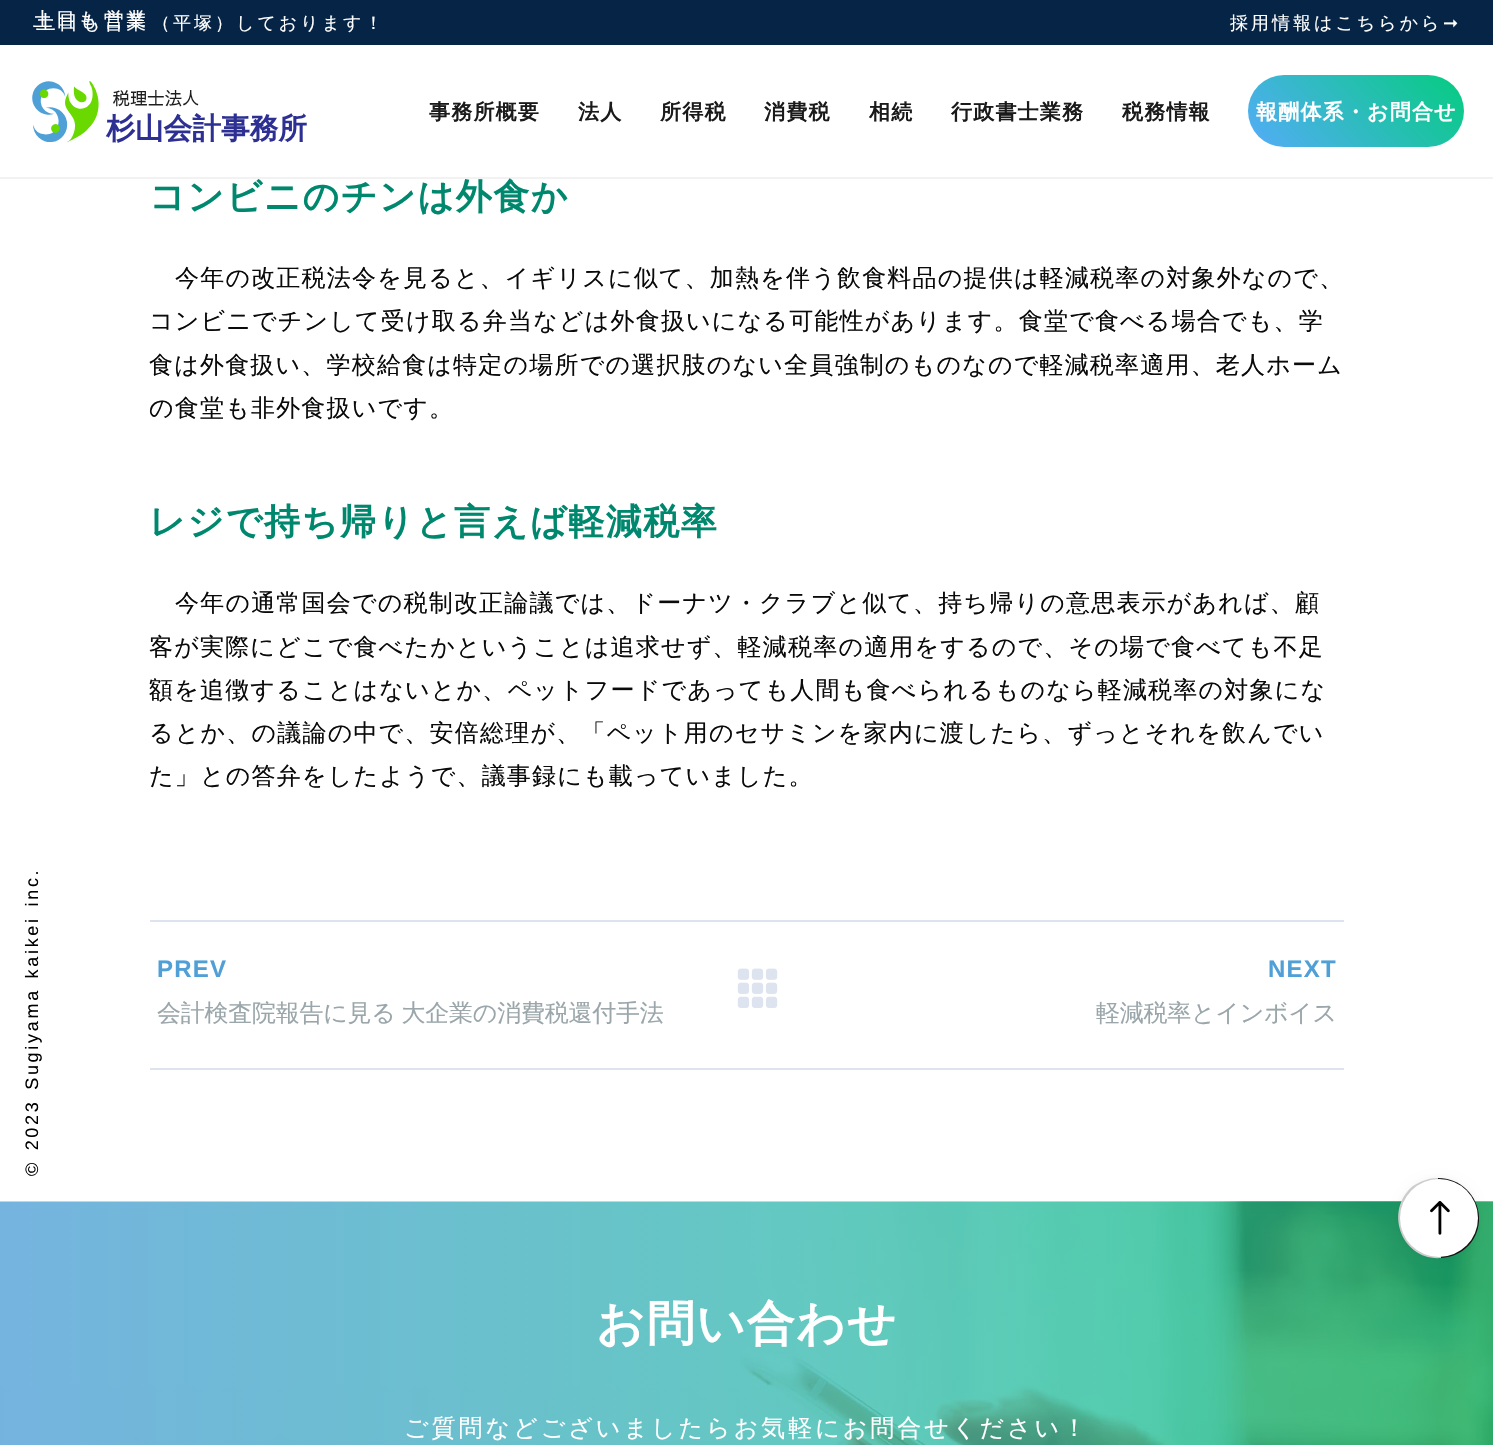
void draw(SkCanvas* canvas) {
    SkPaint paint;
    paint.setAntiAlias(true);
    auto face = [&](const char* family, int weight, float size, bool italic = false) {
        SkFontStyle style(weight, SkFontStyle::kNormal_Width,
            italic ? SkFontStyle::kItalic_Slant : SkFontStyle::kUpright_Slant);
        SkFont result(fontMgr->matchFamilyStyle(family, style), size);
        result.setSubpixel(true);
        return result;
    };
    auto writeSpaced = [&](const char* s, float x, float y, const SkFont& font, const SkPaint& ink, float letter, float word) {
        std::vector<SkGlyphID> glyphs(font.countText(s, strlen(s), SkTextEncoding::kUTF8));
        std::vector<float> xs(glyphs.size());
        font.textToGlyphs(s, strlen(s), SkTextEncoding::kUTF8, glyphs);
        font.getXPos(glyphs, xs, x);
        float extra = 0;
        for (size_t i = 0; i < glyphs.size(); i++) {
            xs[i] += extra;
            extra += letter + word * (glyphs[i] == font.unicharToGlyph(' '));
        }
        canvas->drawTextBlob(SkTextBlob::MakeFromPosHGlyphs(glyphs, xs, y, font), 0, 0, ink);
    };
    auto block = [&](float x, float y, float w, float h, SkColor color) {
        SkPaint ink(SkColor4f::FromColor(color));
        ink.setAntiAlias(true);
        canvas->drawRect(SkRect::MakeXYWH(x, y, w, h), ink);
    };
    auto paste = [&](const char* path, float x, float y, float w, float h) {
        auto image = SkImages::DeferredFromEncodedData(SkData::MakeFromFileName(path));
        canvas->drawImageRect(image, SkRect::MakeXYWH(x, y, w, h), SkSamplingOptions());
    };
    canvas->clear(SK_ColorWHITE);
    block(0, 0, 1493, 45, SkColorSetRGB(6, 36, 69));
    auto kFont1 = face("WenQuanYi Zen Hei", 500, 19.5f);
    paint.setColor(SK_ColorWHITE);
    writeSpaced("土日も", 33, 26, kFont1, paint, 3, 0);
    writeSpaced("営業", 104, 26, kFont1, paint, 3, 0);
    writeSpaced("土日も営業", 36, 29, kFont1, paint, 3, 0);
    auto kFont2 = face("WenQuanYi Zen Hei", 500, 18);
    writeSpaced("（平塚）しております！", 152, 29, kFont2, paint, 3, 0);
    writeSpaced("採用情報はこちらから", 1230, 29, kFont2, paint, 3, 0);
    auto kFont3 = face("DejaVu Sans", 400, 18);
    writeSpaced("➞", 1443, 29, kFont3, paint, 3, 0);
    block(0, 177, 1493, 2, SkColorSetRGB(242, 242, 242));
    paste("pic1.png", 32, 81, 275, 62);
    auto kFont4 = face("WenQuanYi Zen Hei", 700, 21);
    paint.setColor(SkColorSetRGB(26, 26, 26));
    writeSpaced("事務所概要", 429, 119, kFont4, paint, 1.2f, 0);
    writeSpaced("法人", 578, 119, kFont4, paint, 1.2f, 0);
    writeSpaced("所得税", 660, 119, kFont4, paint, 1.2f, 0);
    writeSpaced("消費税", 764, 119, kFont4, paint, 1.2f, 0);
    writeSpaced("相続", 869, 119, kFont4, paint, 1.2f, 0);
    writeSpaced("行政書士業務", 951, 119, kFont4, paint, 1.2f, 0);
    writeSpaced("税務情報", 1122, 119, kFont4, paint, 1.2f, 0);
    {
        const SkColor colors[] = {SkColorSetRGB(5, 204, 128), SkColorSetRGB(84, 172, 248)};
        const float stops[] = {0, 1};
        const SkPoint ends[] = {{1430, 40}, {1282, 182}};
        paint.setShader(SkGradientShader::MakeLinear(ends, colors, stops, 2, SkTileMode::kClamp));
        paint.setAlpha(255);
    }
    canvas->drawRoundRect(SkRect::MakeXYWH(1248, 75, 216, 72), 36, 36, paint);
    paint.setShader(nullptr);
    paint.setColor(SK_ColorWHITE);
    writeSpaced("報酬体系・お問合せ", 1256, 119, kFont4, paint, 1.2f, 0);
    auto kFont5 = face("Liberation Sans", 400, 18);
    paint.setColor(SK_ColorBLACK);
    canvas->save();
    canvas->rotate(-90, 38, 1176);
    writeSpaced("© 2023 Sugiyama kaikei inc.", 38, 1176, kFont5, paint, 2.7f, 2);
    canvas->restore();
    auto kFont6 = face("WenQuanYi Zen Hei", 700, 36);
    paint.setColor(SkColorSetRGB(0, 136, 110));
    writeSpaced("コンビニのチンは外食か", 149, 209, kFont6, paint, 1.5f, 0);
    auto kFont7 = face("WenQuanYi Zen Hei", 500, 24);
    paint.setColor(SkColorSetRGB(10, 10, 10));
    writeSpaced("今年の改正税法令を見ると、イギリスに似て、加熱を伴う飲食料品の提供は軽減税率の対象外なので、", 175, 286, kFont7, paint, 1.2f, 0);
    writeSpaced("コンビニでチンして受け取る弁当などは外食扱いになる可能性があります。食堂で食べる場合でも、学", 149, 329, kFont7, paint, 1.2f, 0);
    writeSpaced("食は外食扱い、学校給食は特定の場所での選択肢のない全員強制のものなので軽減税率適用、老人ホーム", 149, 373, kFont7, paint, 1.2f, 0);
    writeSpaced("の食堂も非外食扱いです。", 149, 416, kFont7, paint, 1.2f, 0);
    paint.setColor(SkColorSetRGB(0, 136, 110));
    writeSpaced("レジで持ち帰りと言えば軽減税率", 149, 534, kFont6, paint, 1.5f, 0);
    paint.setColor(SkColorSetRGB(10, 10, 10));
    writeSpaced("今年の通常国会での税制改正論議では、ドーナツ・クラブと似て、持ち帰りの意思表示があれば、顧", 175, 611, kFont7, paint, 1.2f, 0);
    writeSpaced("客が実際にどこで食べたかということは追求せず、軽減税率の適用をするので、その場で食べても不足", 149, 655, kFont7, paint, 1.2f, 0);
    writeSpaced("額を追徴することはないとか、ペットフードであっても人間も食べられるものなら軽減税率の対象にな", 149, 698, kFont7, paint, 1.2f, 0);
    writeSpaced("るとか、の議論の中で、安倍総理が、「ペット用のセサミンを家内に渡したら、ずっとそれを飲んでい", 149, 741, kFont7, paint, 1.2f, 0);
    writeSpaced("た」との答弁をしたようで、議事録にも載っていました。", 149, 784, kFont7, paint, 1.2f, 0);
    block(150, 920, 1194, 2, SkColorSetRGB(221, 227, 239));
    block(150, 1068, 1194, 2, SkColorSetRGB(221, 227, 239));
    auto kFont8 = face("Liberation Sans", 700, 24);
    paint.setColor(SkColorSetRGB(80, 159, 215));
    writeSpaced("PREV", 157, 977, kFont8, paint, 1.2f, 0);
    paint.setColor(SkColorSetRGB(154, 166, 170));
    writeSpaced("会計検査院報告に見る 大企業の消費税還付手法", 157, 1021, kFont7, paint, -0.25f, -1);
    paste("pic2.png", 737, 968, 41, 40);
    paint.setColor(SkColorSetRGB(80, 159, 215));
    writeSpaced("NEXT", 1268, 977, kFont8, paint, 1.2f, 0);
    paint.setColor(SkColorSetRGB(154, 166, 170));
    writeSpaced("軽減税率とインボイス", 1096, 1021, kFont7, paint, -0.25f, 0);
    paste("pic3.png", 0, 1201, 1493, 244);
    auto kFont9 = face("WenQuanYi Zen Hei", 700, 48);
    paint.setColor(SK_ColorWHITE);
    writeSpaced("お問い合わせ", 596, 1340, kFont9, paint, 1.5f, 0);
    writeSpaced("ご質問などございましたらお気軽にお問合せください！", 404, 1436, kFont7, paint, 3, 0);
    paint.setColor(SkColorSetARGB(13, 0, 0, 0));
    paint.setMaskFilter(SkMaskFilter::MakeBlur(kNormal_SkBlurStyle, 4));
    canvas->drawRoundRect(SkRect::MakeXYWH(1398, 1178, 81, 81), 40.5f, 40.5f, paint);
    paint.setMaskFilter(nullptr);
    paint.setColor(SkColorSetRGB(18, 18, 18));
    canvas->drawPath(SkPathBuilder().moveTo(1438, 1218).lineTo(1438, 1178).cubicTo(1460, 1178, 1478, 1195, 1479, 1217).cubicTo(1480, 1239, 1463, 1257, 1441, 1258).close().detach(), paint);
    paint.setColor(SkColorSetRGB(204, 204, 204));
    canvas->drawPath(SkPathBuilder().moveTo(1438, 1218).lineTo(1441, 1258).cubicTo(1402, 1261, 1383, 1211, 1413, 1186).cubicTo(1421, 1181, 1429, 1178, 1438, 1178).close().detach(), paint);
    paint.setColor(SK_ColorWHITE);
    canvas->drawCircle(1439, 1218, 39, paint);
    paste("pic4.png", 1430, 1201, 20, 34);
}
